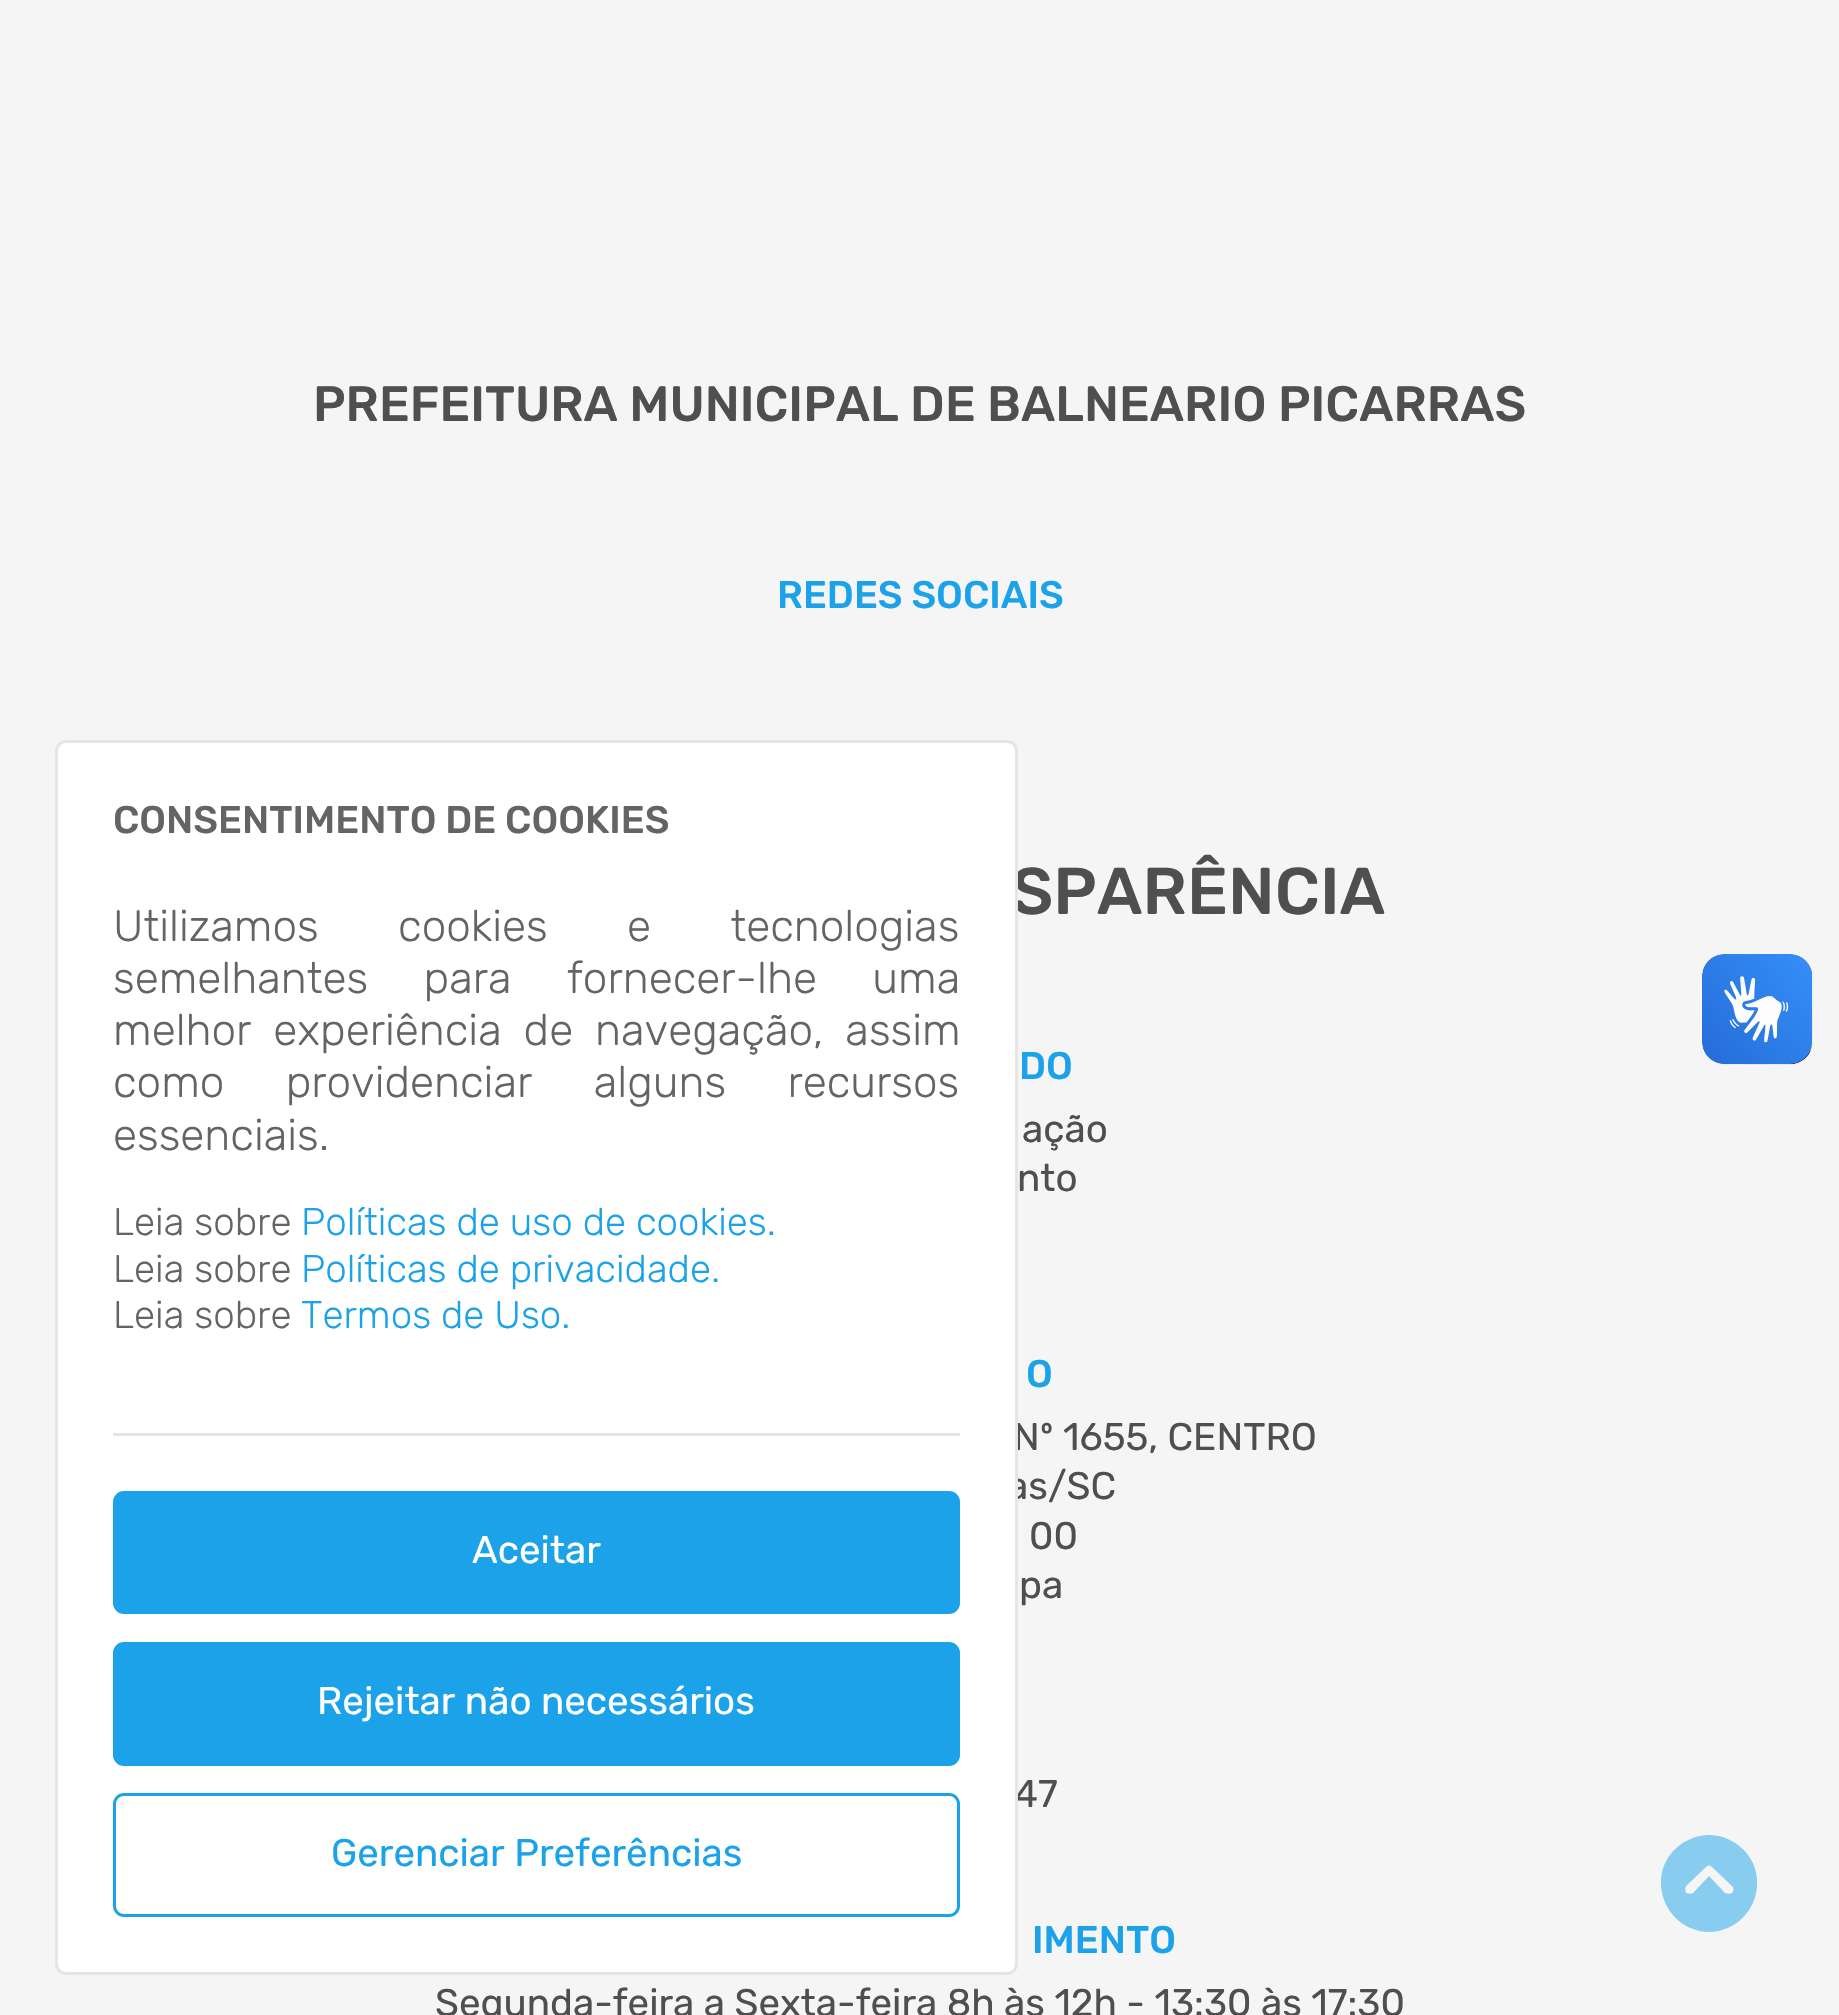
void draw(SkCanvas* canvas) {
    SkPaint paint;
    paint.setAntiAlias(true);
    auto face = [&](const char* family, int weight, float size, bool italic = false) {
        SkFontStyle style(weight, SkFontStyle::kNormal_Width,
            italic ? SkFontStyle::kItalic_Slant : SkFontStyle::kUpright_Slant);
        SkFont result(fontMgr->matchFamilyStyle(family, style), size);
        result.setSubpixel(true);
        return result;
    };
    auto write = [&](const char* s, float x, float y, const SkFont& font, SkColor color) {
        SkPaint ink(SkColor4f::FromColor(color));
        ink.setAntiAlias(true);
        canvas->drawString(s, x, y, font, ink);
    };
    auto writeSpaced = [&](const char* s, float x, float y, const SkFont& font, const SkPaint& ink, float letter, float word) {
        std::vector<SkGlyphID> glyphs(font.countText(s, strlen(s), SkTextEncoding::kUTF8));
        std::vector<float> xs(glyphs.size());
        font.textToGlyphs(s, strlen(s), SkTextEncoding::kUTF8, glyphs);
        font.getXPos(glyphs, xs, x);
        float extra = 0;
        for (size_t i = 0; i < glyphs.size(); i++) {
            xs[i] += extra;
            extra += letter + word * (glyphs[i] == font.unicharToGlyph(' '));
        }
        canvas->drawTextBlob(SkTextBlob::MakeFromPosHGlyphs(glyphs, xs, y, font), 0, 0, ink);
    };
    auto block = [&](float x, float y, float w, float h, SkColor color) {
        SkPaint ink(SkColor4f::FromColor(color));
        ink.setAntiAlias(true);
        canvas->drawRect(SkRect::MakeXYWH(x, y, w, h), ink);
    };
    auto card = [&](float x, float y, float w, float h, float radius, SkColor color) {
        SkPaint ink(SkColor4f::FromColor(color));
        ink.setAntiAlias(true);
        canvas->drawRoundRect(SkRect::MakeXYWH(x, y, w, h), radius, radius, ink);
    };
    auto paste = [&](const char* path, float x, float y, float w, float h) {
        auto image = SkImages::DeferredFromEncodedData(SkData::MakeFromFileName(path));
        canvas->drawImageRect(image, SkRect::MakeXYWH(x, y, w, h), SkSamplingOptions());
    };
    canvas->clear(SkColorSetRGB(245, 245, 245));
    auto kFont1 = face("Rubik", 500, 49.5f);
    write("PREFEITURA MUNICIPAL DE BALNEARIO PICARRAS", 313, 421, kFont1, SkColorSetRGB(79, 79, 80));
    auto kFont2 = face("Rubik", 500, 38.5f);
    write("REDES SOCIAIS", 777, 608, kFont2, SkColorSetRGB(27, 162, 232));
    auto kFont3 = face("Rubik", 500, 66);
    write("SPARÊNCIA", 1011, 914, kFont3, SkColorSetRGB(79, 79, 80));
    write("DO", 1019, 1079, kFont2, SkColorSetRGB(27, 162, 232));
    auto kFont4 = face("Rubik", 400, 38.5f);
    write("ação", 1022, 1142, kFont4, SkColorSetRGB(79, 79, 80));
    write("nto", 1017, 1191, kFont4, SkColorSetRGB(79, 79, 80));
    write("O", 1026, 1387, kFont2, SkColorSetRGB(27, 162, 232));
    write("Nº 1655, CENTRO", 1013, 1450, kFont4, SkColorSetRGB(79, 79, 80));
    write("as/SC", 1007, 1499, kFont4, SkColorSetRGB(79, 79, 80));
    write("00", 1029, 1549, kFont4, SkColorSetRGB(79, 79, 80));
    write("pa", 1019, 1598, kFont4, SkColorSetRGB(79, 79, 80));
    write("47", 1014, 1807, kFont4, SkColorSetRGB(79, 79, 80));
    write("IMENTO", 1032, 1953, kFont2, SkColorSetRGB(27, 162, 232));
    write("Segunda-feira a Sexta-feira 8h às 12h - 13:30 às 17:30", 435, 2016, kFont4, SkColorSetRGB(79, 79, 80));
    paint.setColor(SK_ColorWHITE);
    canvas->drawRoundRect(SkRect::MakeXYWH(56.5f, 741.5f, 960, 1232), 9.5f, 9.5f, paint);
    paint.setStyle(SkPaint::kStroke_Style);
    paint.setStrokeWidth(3);
    paint.setColor(SkColorSetRGB(229, 229, 229));
    canvas->drawRoundRect(SkRect::MakeXYWH(56.5f, 741.5f, 960, 1232), 9.5f, 9.5f, paint);
    write("CONSENTIMENTO DE COOKIES", 113, 833, kFont2, SkColorSetRGB(100, 100, 100));
    auto kFont5 = face("Rubik", 300, 44);
    paint.setStyle(SkPaint::kFill_Style);
    paint.setColor(SkColorSetRGB(100, 100, 100));
    writeSpaced("Utilizamos cookies e tecnologias", 113, 941, kFont5, paint, 0, 68);
    writeSpaced("semelhantes para fornecer-lhe uma", 113, 993, kFont5, paint, 0, 44);
    writeSpaced("melhor experiência de navegação, assim", 113, 1045, kFont5, paint, 0, 10.5f);
    writeSpaced("como providenciar alguns recursos", 113, 1097, kFont5, paint, 0, 50);
    write("essenciais.", 113, 1150, kFont5, SkColorSetRGB(100, 100, 100));
    auto kFont6 = face("Rubik", 300, 38.5f);
    write("Leia sobre", 113, 1235, kFont6, SkColorSetRGB(100, 100, 100));
    write("Políticas de uso de cookies.", 301, 1235, kFont6, SkColorSetRGB(27, 162, 232));
    write("Leia sobre", 113, 1282, kFont6, SkColorSetRGB(100, 100, 100));
    write("Políticas de privacidade.", 301, 1282, kFont6, SkColorSetRGB(27, 162, 232));
    write("Leia sobre", 113, 1328, kFont6, SkColorSetRGB(100, 100, 100));
    write("Termos de Uso.", 301, 1328, kFont6, SkColorSetRGB(27, 162, 232));
    block(113, 1433, 847, 3, SkColorSetRGB(229, 229, 229));
    card(113, 1491, 847, 123, 11, SkColorSetRGB(27, 162, 232));
    write("Aceitar", 472, 1563, kFont4, SK_ColorWHITE);
    card(113, 1642, 847, 124, 11, SkColorSetRGB(27, 162, 232));
    write("Rejeitar não necessários", 317, 1714, kFont4, SK_ColorWHITE);
    paint.setStyle(SkPaint::kStroke_Style);
    paint.setColor(SkColorSetRGB(27, 162, 232));
    canvas->drawRoundRect(SkRect::MakeXYWH(114.5f, 1794.5f, 844, 121), 9.5f, 9.5f, paint);
    write("Gerenciar Preferências", 331, 1866, kFont4, SkColorSetRGB(27, 162, 232));
    paste("pic1.png", 1702, 954, 111, 111);
    paste("pic2.png", 1702, 954, 110, 110);
    paint.setStyle(SkPaint::kFill_Style);
    paint.setColor(SkColorSetRGB(136, 204, 239));
    canvas->drawPath(SkPathBuilder().moveTo(1709, 1932).cubicTo(1755, 1931, 1775, 1873, 1738, 1845).cubicTo(1730, 1839, 1720, 1835, 1709, 1835).cubicTo(1699, 1835, 1688, 1839, 1680, 1845).cubicTo(1643, 1873, 1664, 1931, 1709, 1932).close().moveTo(1732, 1886).cubicTo(1734, 1888, 1734, 1890, 1732, 1893).cubicTo(1730, 1894, 1728, 1894, 1725, 1893).lineTo(1709, 1876).lineTo(1693, 1893).cubicTo(1691, 1894, 1689, 1894, 1686, 1893).cubicTo(1685, 1890, 1685, 1888, 1686, 1886).lineTo(1706, 1867).cubicTo(1708, 1865, 1710, 1865, 1712, 1867).close().detach(), paint);
}
